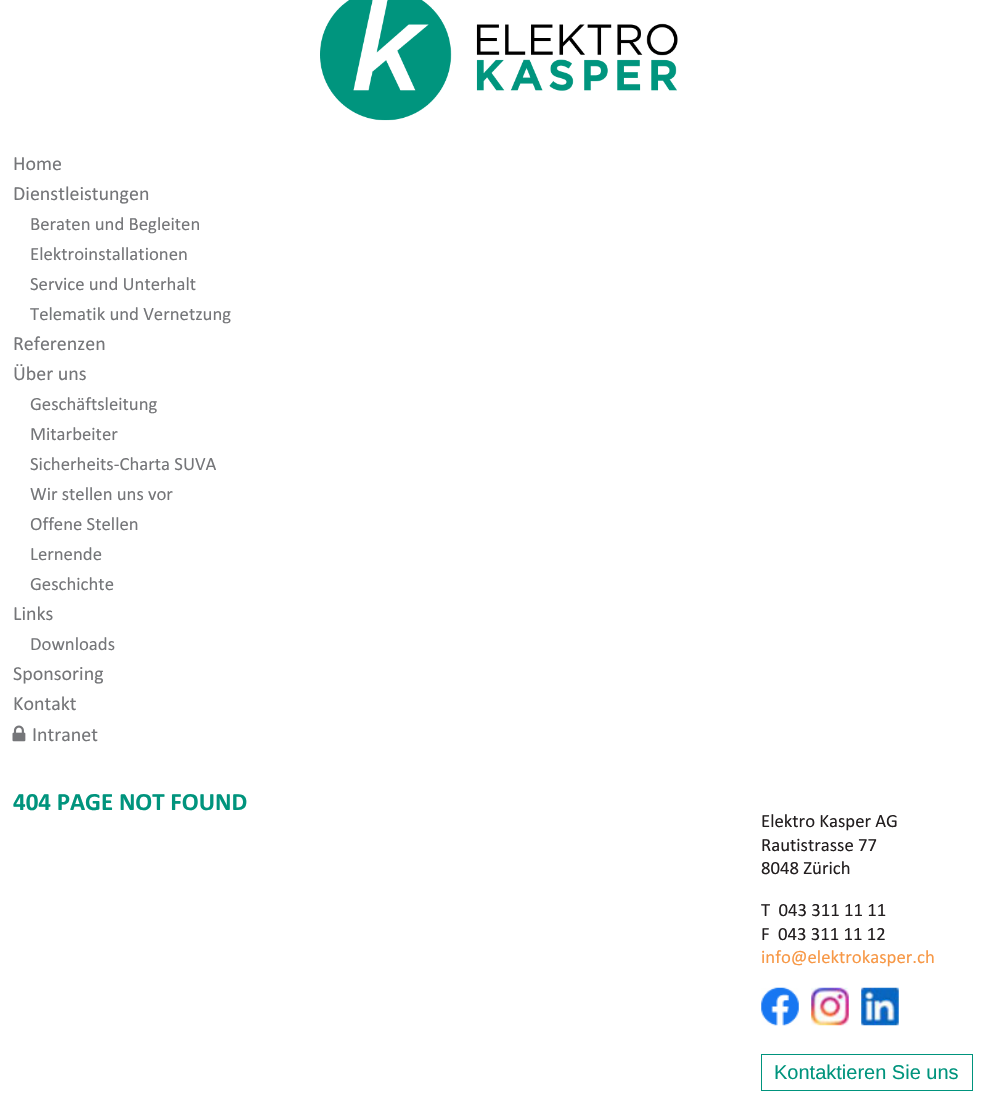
void draw(SkCanvas* canvas) {
    SkPaint paint;
    paint.setAntiAlias(true);
    auto face = [&](const char* family, int weight, float size, bool italic = false) {
        SkFontStyle style(weight, SkFontStyle::kNormal_Width,
            italic ? SkFontStyle::kItalic_Slant : SkFontStyle::kUpright_Slant);
        SkFont result(fontMgr->matchFamilyStyle(family, style), size);
        result.setSubpixel(true);
        return result;
    };
    auto write = [&](const char* s, float x, float y, const SkFont& font, SkColor color) {
        SkPaint ink(SkColor4f::FromColor(color));
        ink.setAntiAlias(true);
        canvas->drawString(s, x, y, font, ink);
    };
    auto paste = [&](const char* path, float x, float y, float w, float h) {
        auto image = SkImages::DeferredFromEncodedData(SkData::MakeFromFileName(path));
        canvas->drawImageRect(image, SkRect::MakeXYWH(x, y, w, h), SkSamplingOptions());
    };
    canvas->clear(SK_ColorWHITE);
    paste("pic1.png", 320, 0, 358, 121);
    auto kFont1 = face("Calibri", 400, 20);
    write("Home", 13, 170, kFont1, SkColorSetRGB(117, 118, 121));
    write("Dienstleistungen", 13, 200, kFont1, SkColorSetRGB(117, 118, 121));
    auto kFont2 = face("Calibri", 400, 18.75f);
    write("Beraten und Begleiten", 30, 230, kFont2, SkColorSetRGB(117, 118, 121));
    write("Elektroinstallationen", 30, 260, kFont2, SkColorSetRGB(117, 118, 121));
    write("Service und Unterhalt", 30, 290, kFont2, SkColorSetRGB(117, 118, 121));
    write("Telematik und Vernetzung", 30, 320, kFont2, SkColorSetRGB(117, 118, 121));
    write("Referenzen", 13, 350, kFont1, SkColorSetRGB(117, 118, 121));
    write("Über uns", 13, 380, kFont1, SkColorSetRGB(117, 118, 121));
    write("Geschäftsleitung", 30, 410, kFont2, SkColorSetRGB(117, 118, 121));
    write("Mitarbeiter", 30, 440, kFont2, SkColorSetRGB(117, 118, 121));
    write("Sicherheits-Charta SUVA", 30, 470, kFont2, SkColorSetRGB(117, 118, 121));
    write("Wir stellen uns vor", 30, 500, kFont2, SkColorSetRGB(117, 118, 121));
    write("Offene Stellen", 30, 530, kFont2, SkColorSetRGB(117, 118, 121));
    write("Lernende", 30, 560, kFont2, SkColorSetRGB(117, 118, 121));
    write("Geschichte", 30, 590, kFont2, SkColorSetRGB(117, 118, 121));
    write("Links", 13, 620, kFont1, SkColorSetRGB(117, 118, 121));
    write("Downloads", 30, 650, kFont2, SkColorSetRGB(117, 118, 121));
    write("Sponsoring", 13, 680, kFont1, SkColorSetRGB(117, 118, 121));
    write("Kontakt", 13, 710, kFont1, SkColorSetRGB(117, 118, 121));
    paste("pic2.png", 12, 725, 14, 17);
    write("Intranet", 32, 741, kFont1, SkColorSetRGB(117, 118, 121));
    auto kFont3 = face("Calibri", 700, 25);
    write("404 PAGE NOT FOUND", 13, 810, kFont3, SkColorSetRGB(0, 148, 125));
    write("Elektro Kasper AG", 761, 827, kFont2, SkColorSetRGB(35, 31, 32));
    write("Rautistrasse 77", 761, 851, kFont2, SkColorSetRGB(35, 31, 32));
    write("8048 Zürich", 761, 874, kFont2, SkColorSetRGB(35, 31, 32));
    write("T  043 311 11 11", 761, 916, kFont2, SkColorSetRGB(35, 31, 32));
    write("F  043 311 11 12", 761, 940, kFont2, SkColorSetRGB(35, 31, 32));
    write("info@elektrokasper.ch", 761, 963, kFont2, SkColorSetRGB(247, 152, 70));
    paste("pic3.png", 761, 987, 38, 39);
    paste("pic4.png", 811, 987, 38, 39);
    paste("pic5.png", 861, 987, 38, 39);
    paint.setStyle(SkPaint::kStroke_Style);
    paint.setStrokeWidth(1);
    paint.setColor(SkColorSetRGB(0, 148, 125));
    canvas->drawRect(SkRect::MakeXYWH(761.5f, 1054.5f, 211, 36), paint);
    auto kFont4 = face("Liberation Sans", 400, 20);
    write("Kontaktieren Sie uns", 774, 1079, kFont4, SkColorSetRGB(0, 148, 125));
}
